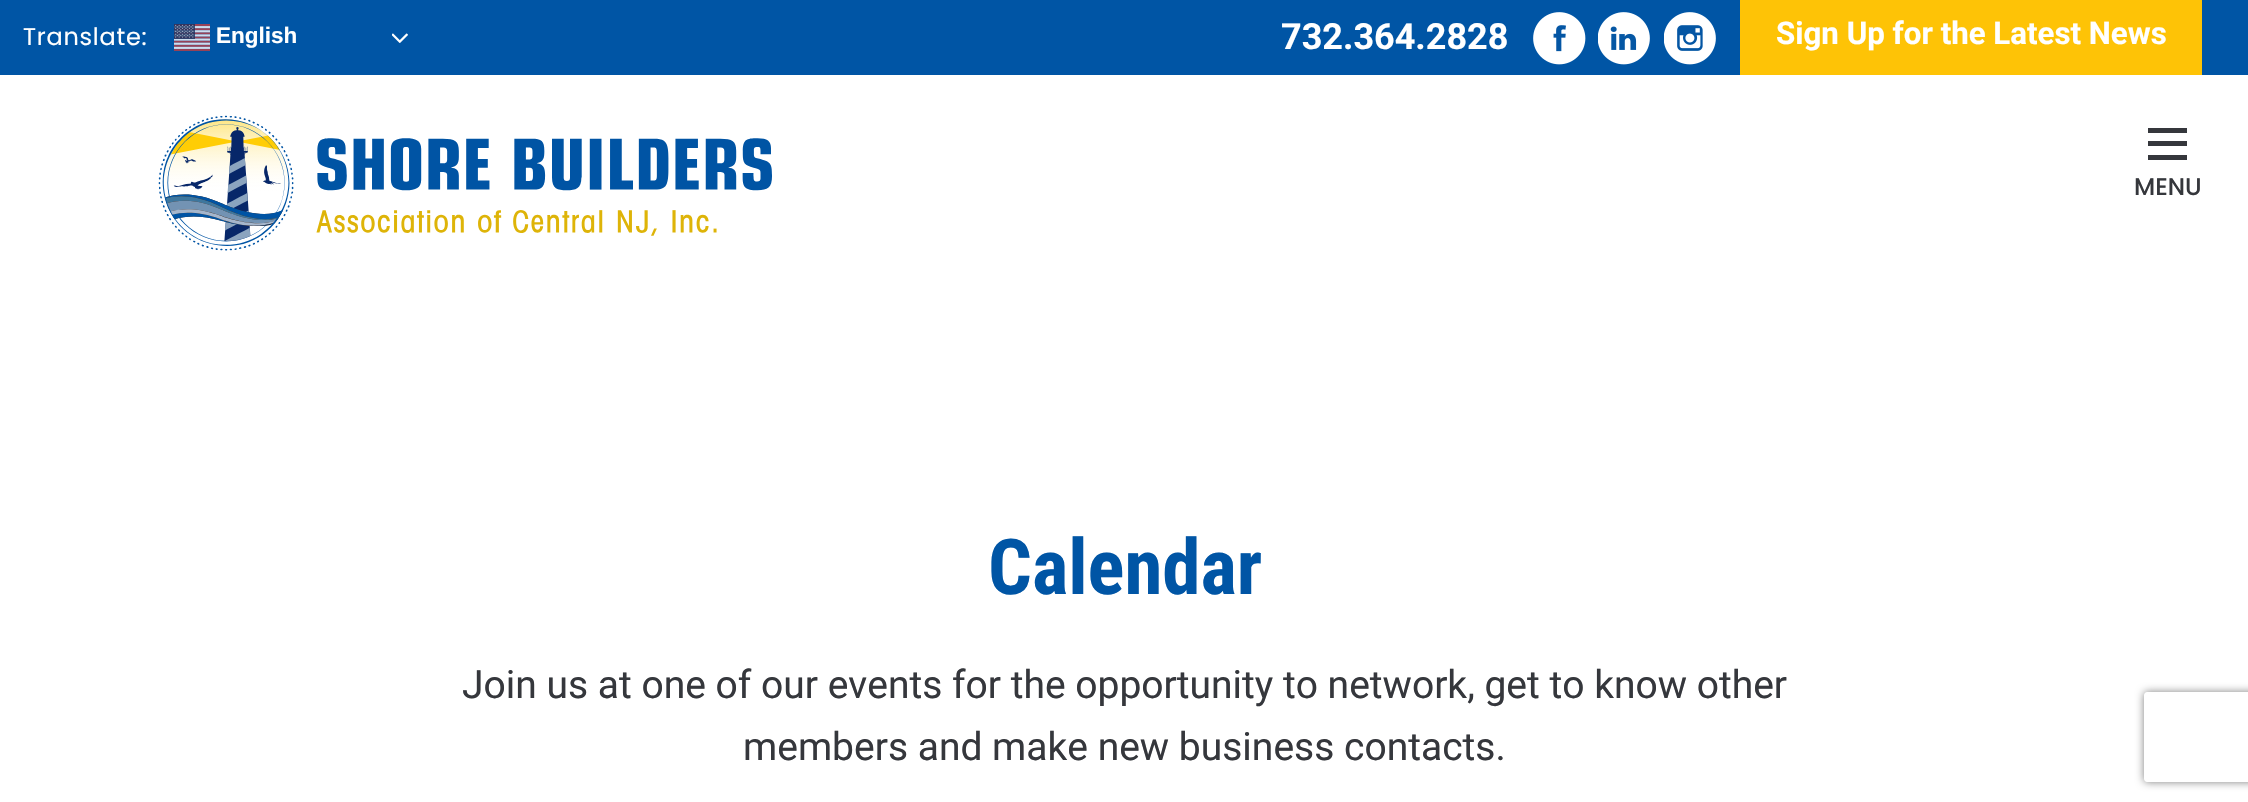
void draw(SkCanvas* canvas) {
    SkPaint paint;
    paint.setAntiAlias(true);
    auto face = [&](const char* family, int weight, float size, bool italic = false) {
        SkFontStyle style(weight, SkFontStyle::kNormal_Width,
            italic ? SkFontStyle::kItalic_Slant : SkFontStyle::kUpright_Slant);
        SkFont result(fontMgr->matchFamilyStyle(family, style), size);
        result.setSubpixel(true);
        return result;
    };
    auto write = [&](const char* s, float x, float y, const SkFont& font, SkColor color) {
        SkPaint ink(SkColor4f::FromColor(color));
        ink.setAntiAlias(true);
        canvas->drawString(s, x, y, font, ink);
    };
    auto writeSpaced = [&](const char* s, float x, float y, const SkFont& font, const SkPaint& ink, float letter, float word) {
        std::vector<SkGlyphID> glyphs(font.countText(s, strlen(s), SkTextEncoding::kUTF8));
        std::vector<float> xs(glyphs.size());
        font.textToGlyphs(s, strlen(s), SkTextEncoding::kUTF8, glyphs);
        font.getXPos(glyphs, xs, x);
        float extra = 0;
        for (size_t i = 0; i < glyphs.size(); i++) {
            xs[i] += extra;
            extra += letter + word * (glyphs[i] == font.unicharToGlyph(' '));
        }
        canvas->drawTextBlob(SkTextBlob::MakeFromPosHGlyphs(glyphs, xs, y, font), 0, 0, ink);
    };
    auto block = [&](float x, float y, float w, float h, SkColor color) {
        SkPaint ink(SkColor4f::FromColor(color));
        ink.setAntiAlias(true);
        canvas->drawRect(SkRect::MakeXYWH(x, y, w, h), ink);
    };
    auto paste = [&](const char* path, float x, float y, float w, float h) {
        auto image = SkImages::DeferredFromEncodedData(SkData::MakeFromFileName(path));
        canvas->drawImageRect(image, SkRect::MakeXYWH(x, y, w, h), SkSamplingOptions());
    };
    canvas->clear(SK_ColorWHITE);
    block(0, 0, 2248, 75, SkColorSetRGB(0, 85, 165));
    auto kFont1 = face("Poppins", 400, 24);
    paint.setColor(SK_ColorWHITE);
    writeSpaced("Translate:", 23, 45, kFont1, paint, 0.75f, 0);
    paste("pic1.png", 174, 24, 36, 27);
    auto kFont2 = face("Liberation Sans", 700, 22.5f);
    write("English", 216, 43, kFont2, SK_ColorWHITE);
    paste("pic2.png", 392, 33, 16, 10);
    auto kFont3 = face("Roboto", 700, 36);
    write("732.364.2828", 1281, 49, kFont3, SK_ColorWHITE);
    paste("pic3.png", 1533, 12, 53, 53);
    paste("pic4.png", 1598, 12, 52, 53);
    paste("pic5.png", 1664, 12, 52, 53);
    block(1740, 0, 462, 75, SkColorSetRGB(254, 195, 6));
    auto kFont4 = face("Roboto", 700, 31.25f);
    write("Sign Up for the Latest News", 1776, 44, kFont4, SK_ColorWHITE);
    paste("pic6.png", 158, 115, 614, 136);
    block(2148, 155, 39, 5, SkColorSetRGB(53, 55, 60));
    block(2148, 141, 39, 5, SkColorSetRGB(53, 55, 60));
    block(2148, 128, 39, 5, SkColorSetRGB(53, 55, 60));
    auto kFont5 = face("Poppins", 500, 24);
    write("MENU", 2134, 195, kFont5, SkColorSetRGB(53, 55, 60));
    auto kFont6 = face("Roboto Condensed", 700, 77);
    write("Calendar", 988, 594, kFont6, SkColorSetRGB(0, 85, 165));
    auto kFont7 = face("Roboto", 400, 39);
    write("Join us at one of our events for the opportunity to network, get to know other", 462, 698, kFont7, SkColorSetRGB(53, 55, 60));
    write("members and make new business contacts.", 743, 760, kFont7, SkColorSetRGB(53, 55, 60));
    canvas->save();
    canvas->clipPath(SkPathBuilder(SkPathFillType::kEvenOdd).moveTo(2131, 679).lineTo(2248, 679).lineTo(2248, 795).lineTo(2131, 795).close().moveTo(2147, 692).lineTo(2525, 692).cubicTo(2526.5f, 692, 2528, 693.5f, 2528, 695).lineTo(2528, 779).cubicTo(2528, 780.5f, 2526.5f, 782, 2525, 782).lineTo(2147, 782).cubicTo(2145.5f, 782, 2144, 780.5f, 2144, 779).lineTo(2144, 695).cubicTo(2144, 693.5f, 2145.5f, 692, 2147, 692).close().detach(), true);
    paint.setColor(SkColorSetRGB(128, 128, 128));
    paint.setMaskFilter(SkMaskFilter::MakeBlur(kNormal_SkBlurStyle, 4));
    canvas->drawRoundRect(SkRect::MakeXYWH(2144, 692, 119, 90), 3, 3, paint);
    paint.setMaskFilter(nullptr);
    canvas->restore();
}
